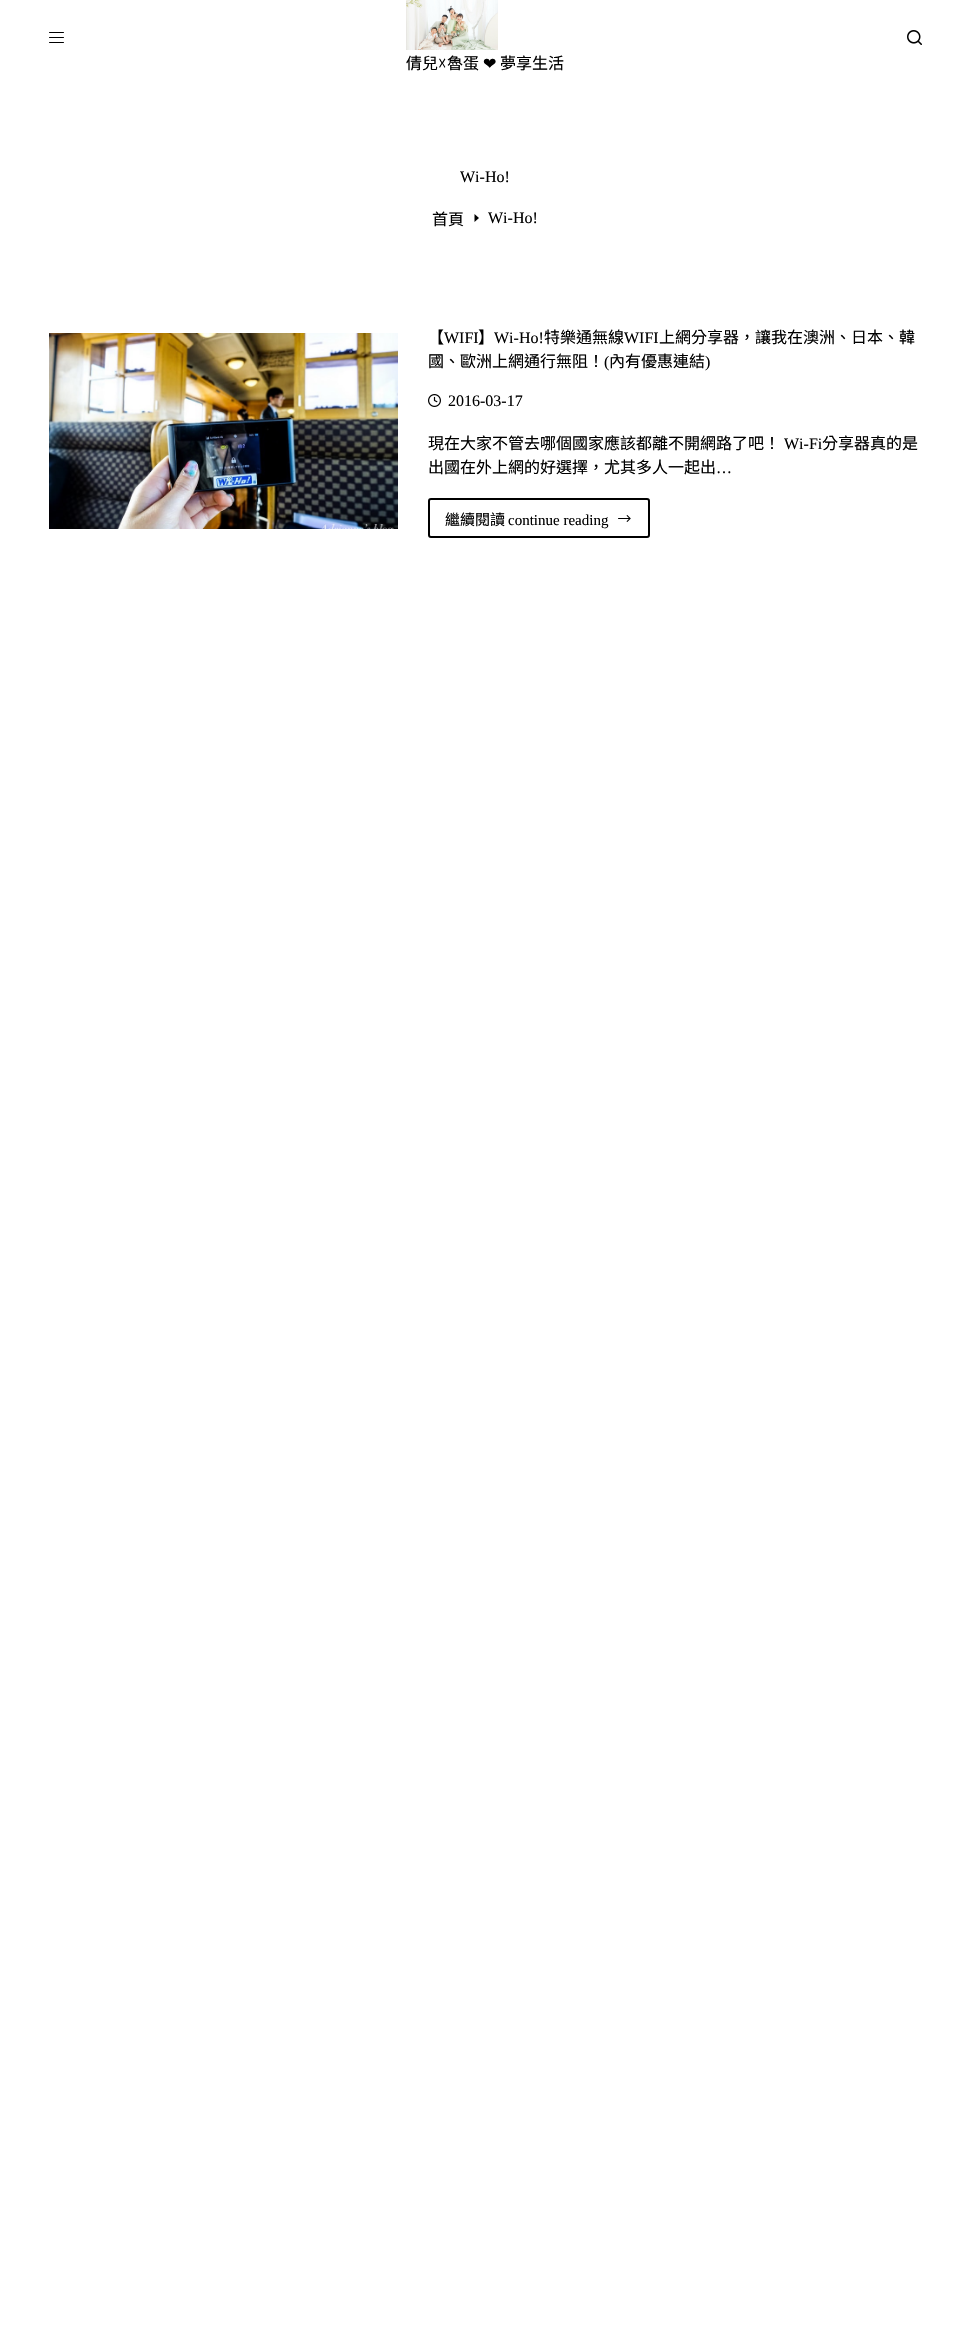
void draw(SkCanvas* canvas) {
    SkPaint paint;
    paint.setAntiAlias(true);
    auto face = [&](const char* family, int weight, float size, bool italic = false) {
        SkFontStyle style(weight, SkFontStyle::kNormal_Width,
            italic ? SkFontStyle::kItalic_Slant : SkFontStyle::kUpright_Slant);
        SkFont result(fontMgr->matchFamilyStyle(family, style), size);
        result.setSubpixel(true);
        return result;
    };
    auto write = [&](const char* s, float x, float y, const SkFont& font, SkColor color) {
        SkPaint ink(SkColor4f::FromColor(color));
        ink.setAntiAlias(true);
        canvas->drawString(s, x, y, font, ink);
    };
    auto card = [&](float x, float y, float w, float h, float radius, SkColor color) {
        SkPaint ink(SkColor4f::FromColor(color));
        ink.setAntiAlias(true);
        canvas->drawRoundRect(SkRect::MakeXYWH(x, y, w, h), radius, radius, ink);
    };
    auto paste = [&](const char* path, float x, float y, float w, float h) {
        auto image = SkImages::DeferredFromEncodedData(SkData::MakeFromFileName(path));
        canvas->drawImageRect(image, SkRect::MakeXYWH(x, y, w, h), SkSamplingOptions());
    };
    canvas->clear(SK_ColorWHITE);
    card(49, 32, 15, 1, 0.5f, SK_ColorBLACK);
    card(49, 37, 15, 1, 0.5f, SK_ColorBLACK);
    card(49, 42, 15, 1, 0.5f, SK_ColorBLACK);
    paste("pic1.png", 907, 30, 15, 15);
    paste("pic2.png", 406, 0, 92, 50);
    auto kFont1 = face("Noto Sans CJK TC", 400, 16);
    write("倩兒", 406, 69, kFont1, SK_ColorBLACK);
    auto kFont2 = face("DejaVu Sans", 400, 16);
    write("☓", 438, 69, kFont2, SK_ColorBLACK);
    write("魯蛋", 447, 69, kFont1, SK_ColorBLACK);
    write("❤", 483, 69, kFont2, SK_ColorBLACK);
    write("夢享生活", 500, 69, kFont1, SK_ColorBLACK);
    auto kFont3 = face("Liberation Serif", 400, 16);
    write("Wi-Ho!", 460, 182, kFont3, SK_ColorBLACK);
    write("首頁", 432, 225, kFont1, SK_ColorBLACK);
    paint.setColor(SK_ColorBLACK);
    canvas->drawPath(SkPathBuilder().moveTo(474.5f, 214).lineTo(479, 218).lineTo(474.5f, 222).close().detach(), paint);
    write("Wi-Ho!", 488, 223, kFont3, SK_ColorBLACK);
    paste("pic3.png", 49, 333, 349, 196);
    write("【", 428, 343, kFont1, SK_ColorBLACK);
    write("WIFI", 444, 343, kFont3, SK_ColorBLACK);
    write("】", 478, 343, kFont1, SK_ColorBLACK);
    write("Wi-Ho!", 494, 343, kFont3, SK_ColorBLACK);
    write("特樂通無線", 544, 343, kFont1, SK_ColorBLACK);
    write("WIFI", 624, 343, kFont3, SK_ColorBLACK);
    write("上網分享器，讓我在澳洲、日本、韓", 659, 343, kFont1, SK_ColorBLACK);
    write("國、歐洲上網通行無阻！", 428, 367, kFont1, SK_ColorBLACK);
    write("(", 604, 367, kFont3, SK_ColorBLACK);
    write("內有優惠連結", 609, 367, kFont1, SK_ColorBLACK);
    write(")", 705, 367, kFont3, SK_ColorBLACK);
    paste("pic4.png", 428, 394, 13, 13);
    write("2016-03-17", 448, 406, kFont3, SK_ColorBLACK);
    write("現在大家不管去哪個國家應該都離不開網路了吧！", 428, 449, kFont1, SK_ColorBLACK);
    write("Wi-Fi", 784, 449, kFont3, SK_ColorBLACK);
    write("分享器真的是", 822, 449, kFont1, SK_ColorBLACK);
    write("出國在外上網的好選擇，尤其多人一起出", 428, 473, kFont1, SK_ColorBLACK);
    write("…", 716, 473, kFont3, SK_ColorBLACK);
    paint.setStyle(SkPaint::kStroke_Style);
    paint.setStrokeWidth(2);
    canvas->drawRoundRect(SkRect::MakeXYWH(429, 499, 220, 38), 2, 2, paint);
    auto kFont4 = face("Noto Sans CJK TC", 400, 15);
    write("繼續閱讀", 445, 525, kFont4, SK_ColorBLACK);
    auto kFont5 = face("Liberation Serif", 400, 15);
    write("continue reading", 508, 525, kFont5, SK_ColorBLACK);
    paste("pic5.png", 618, 515, 13, 7);
}
